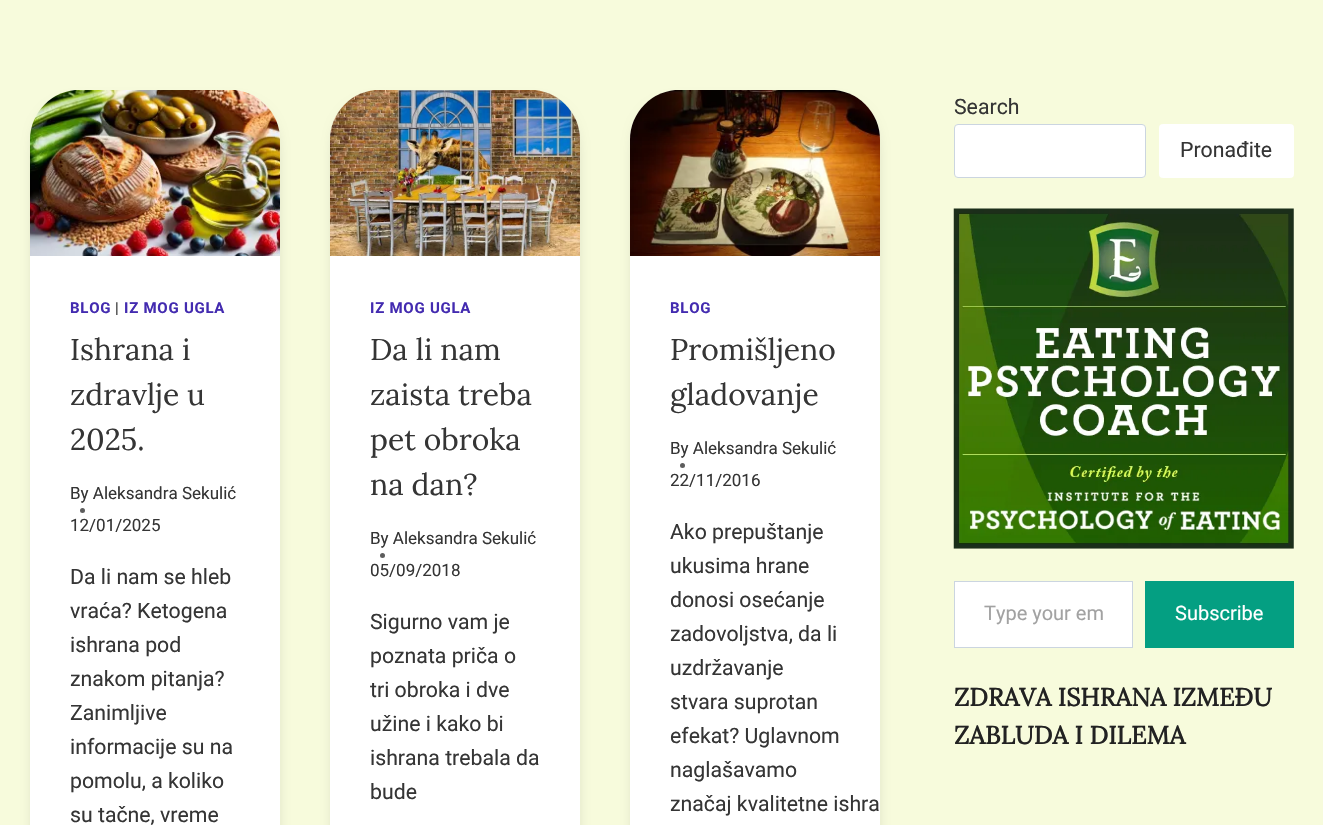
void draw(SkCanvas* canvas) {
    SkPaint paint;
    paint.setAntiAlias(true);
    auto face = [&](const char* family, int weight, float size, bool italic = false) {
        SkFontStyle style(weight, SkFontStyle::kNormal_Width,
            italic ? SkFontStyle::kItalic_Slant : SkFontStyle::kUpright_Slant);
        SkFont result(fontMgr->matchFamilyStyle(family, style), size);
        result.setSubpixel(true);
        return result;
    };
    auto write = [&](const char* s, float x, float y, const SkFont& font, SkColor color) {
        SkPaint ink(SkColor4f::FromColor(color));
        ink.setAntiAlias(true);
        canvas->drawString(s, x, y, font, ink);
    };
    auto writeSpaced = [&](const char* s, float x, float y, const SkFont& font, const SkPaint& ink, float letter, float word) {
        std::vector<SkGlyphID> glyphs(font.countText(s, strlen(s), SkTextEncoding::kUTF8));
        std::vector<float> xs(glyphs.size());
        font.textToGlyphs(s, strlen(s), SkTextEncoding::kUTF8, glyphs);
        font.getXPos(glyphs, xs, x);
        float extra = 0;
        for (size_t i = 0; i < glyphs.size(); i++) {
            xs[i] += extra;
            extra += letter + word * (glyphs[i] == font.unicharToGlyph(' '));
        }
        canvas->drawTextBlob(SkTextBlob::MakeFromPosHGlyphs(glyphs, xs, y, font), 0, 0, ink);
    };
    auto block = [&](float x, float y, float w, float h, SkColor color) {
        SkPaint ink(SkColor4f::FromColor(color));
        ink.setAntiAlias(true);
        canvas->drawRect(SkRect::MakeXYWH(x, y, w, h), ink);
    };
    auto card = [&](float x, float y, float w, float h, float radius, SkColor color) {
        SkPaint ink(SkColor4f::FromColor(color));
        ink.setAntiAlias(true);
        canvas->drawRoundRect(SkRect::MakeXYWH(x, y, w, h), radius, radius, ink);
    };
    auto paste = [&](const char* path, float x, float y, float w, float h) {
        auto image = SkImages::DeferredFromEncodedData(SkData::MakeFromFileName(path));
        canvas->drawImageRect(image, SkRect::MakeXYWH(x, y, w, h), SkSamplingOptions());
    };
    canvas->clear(SkColorSetRGB(247, 251, 220));
    paint.setColor(SkColorSetARGB(122, 0, 0, 0));
    paint.setMaskFilter(SkMaskFilter::MakeBlur(kNormal_SkBlurStyle, 9.5f));
    canvas->drawRoundRect(SkRect::MakeXYWH(43, 110, 225, 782), 38, 38, paint);
    paint.setMaskFilter(nullptr);
    card(30, 90, 250, 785, 50, SK_ColorWHITE);
    paste("pic1.png", 30, 90, 250, 166);
    auto kFont1 = face("Roboto", 700, 15);
    paint.setColor(SkColorSetRGB(67, 43, 176));
    writeSpaced("BLOG", 70, 313, kFont1, paint, 0.75f, 0);
    auto kFont2 = face("Roboto", 400, 15);
    paint.setColor(SkColorSetRGB(53, 53, 53));
    writeSpaced("|", 115, 313, kFont2, paint, 0.75f, 0);
    paint.setColor(SkColorSetRGB(67, 43, 176));
    writeSpaced("IZ MOG UGLA", 124, 313, kFont1, paint, 0.75f, 0);
    auto kFont3 = face("Lora", 400, 30);
    write("Ishrana i", 70, 360, kFont3, SkColorSetRGB(53, 53, 53));
    write("zdravlje u", 70, 405, kFont3, SkColorSetRGB(53, 53, 53));
    write("2025.", 70, 450, kFont3, SkColorSetRGB(53, 53, 53));
    auto kFont4 = face("Roboto", 400, 17);
    write("By Aleksandra Sekulić", 70, 499, kFont4, SkColorSetRGB(53, 53, 53));
    paint.setColor(SkColorSetRGB(93, 93, 93));
    canvas->drawCircle(82.5f, 510.5f, 2.5f, paint);
    write("12/01/2025", 70, 531, kFont4, SkColorSetRGB(53, 53, 53));
    auto kFont5 = face("Roboto", 400, 21.25f);
    write("Da li nam se hleb", 70, 584, kFont5, SkColorSetRGB(53, 53, 53));
    write("vraća? Ketogena", 70, 618, kFont5, SkColorSetRGB(53, 53, 53));
    write("ishrana pod", 70, 652, kFont5, SkColorSetRGB(53, 53, 53));
    write("znakom pitanja?", 70, 686, kFont5, SkColorSetRGB(53, 53, 53));
    write("Zanimljive", 70, 720, kFont5, SkColorSetRGB(53, 53, 53));
    write("informacije su na", 70, 754, kFont5, SkColorSetRGB(53, 53, 53));
    write("pomolu, a koliko", 70, 788, kFont5, SkColorSetRGB(53, 53, 53));
    write("su tačne, vreme", 70, 822, kFont5, SkColorSetRGB(53, 53, 53));
    paint.setColor(SkColorSetARGB(122, 0, 0, 0));
    paint.setMaskFilter(SkMaskFilter::MakeBlur(kNormal_SkBlurStyle, 9.5f));
    canvas->drawRoundRect(SkRect::MakeXYWH(343, 110, 225, 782), 38, 38, paint);
    paint.setMaskFilter(nullptr);
    card(330, 90, 250, 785, 50, SK_ColorWHITE);
    paste("pic2.png", 330, 90, 250, 166);
    paint.setColor(SkColorSetRGB(67, 43, 176));
    writeSpaced("IZ MOG UGLA", 370, 313, kFont1, paint, 0.75f, 0);
    write("Da li nam", 370, 360, kFont3, SkColorSetRGB(53, 53, 53));
    write("zaista treba", 370, 405, kFont3, SkColorSetRGB(53, 53, 53));
    write("pet obroka", 370, 450, kFont3, SkColorSetRGB(53, 53, 53));
    write("na dan?", 370, 495, kFont3, SkColorSetRGB(53, 53, 53));
    write("By Aleksandra Sekulić", 370, 544, kFont4, SkColorSetRGB(53, 53, 53));
    paint.setColor(SkColorSetRGB(93, 93, 93));
    canvas->drawCircle(382.5f, 555.5f, 2.5f, paint);
    write("05/09/2018", 370, 576, kFont4, SkColorSetRGB(53, 53, 53));
    write("Sigurno vam je", 370, 629, kFont5, SkColorSetRGB(53, 53, 53));
    write("poznata priča o", 370, 663, kFont5, SkColorSetRGB(53, 53, 53));
    write("tri obroka i dve", 370, 697, kFont5, SkColorSetRGB(53, 53, 53));
    write("užine i kako bi", 370, 731, kFont5, SkColorSetRGB(53, 53, 53));
    write("ishrana trebala da", 370, 765, kFont5, SkColorSetRGB(53, 53, 53));
    write("bude", 370, 799, kFont5, SkColorSetRGB(53, 53, 53));
    paint.setColor(SkColorSetARGB(122, 0, 0, 0));
    paint.setMaskFilter(SkMaskFilter::MakeBlur(kNormal_SkBlurStyle, 9.5f));
    canvas->drawRoundRect(SkRect::MakeXYWH(643, 110, 225, 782), 38, 38, paint);
    paint.setMaskFilter(nullptr);
    card(630, 90, 250, 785, 50, SK_ColorWHITE);
    paste("pic3.png", 630, 90, 250, 166);
    paint.setColor(SkColorSetRGB(67, 43, 176));
    writeSpaced("BLOG", 670, 313, kFont1, paint, 0.75f, 0);
    write("Promišljeno", 670, 360, kFont3, SkColorSetRGB(53, 53, 53));
    write("gladovanje", 670, 405, kFont3, SkColorSetRGB(53, 53, 53));
    write("By Aleksandra Sekulić", 670, 454, kFont4, SkColorSetRGB(53, 53, 53));
    paint.setColor(SkColorSetRGB(93, 93, 93));
    canvas->drawCircle(682.5f, 465.5f, 2.5f, paint);
    write("22/11/2016", 670, 486, kFont4, SkColorSetRGB(53, 53, 53));
    write("Ako prepuštanje", 670, 539, kFont5, SkColorSetRGB(53, 53, 53));
    write("ukusima hrane", 670, 573, kFont5, SkColorSetRGB(53, 53, 53));
    write("donosi osećanje", 670, 607, kFont5, SkColorSetRGB(53, 53, 53));
    write("zadovoljstva, da li", 670, 641, kFont5, SkColorSetRGB(53, 53, 53));
    write("uzdržavanje", 670, 675, kFont5, SkColorSetRGB(53, 53, 53));
    write("stvara suprotan", 670, 709, kFont5, SkColorSetRGB(53, 53, 53));
    write("efekat? Uglavnom", 670, 743, kFont5, SkColorSetRGB(53, 53, 53));
    write("naglašavamo", 670, 777, kFont5, SkColorSetRGB(53, 53, 53));
    write("značaj kvalitetne ishra", 670, 811, kFont5, SkColorSetRGB(53, 53, 53));
    write("Search", 954, 114, kFont5, SkColorSetRGB(53, 53, 53));
    paint.setColor(SK_ColorWHITE);
    canvas->drawRoundRect(SkRect::MakeXYWH(954.5f, 124.5f, 191, 53), 3.5f, 3.5f, paint);
    paint.setStyle(SkPaint::kStroke_Style);
    paint.setStrokeWidth(1);
    paint.setColor(SkColorSetRGB(203, 213, 224));
    canvas->drawRoundRect(SkRect::MakeXYWH(954.5f, 124.5f, 191, 53), 3.5f, 3.5f, paint);
    card(1159, 124, 135, 54, 4, SK_ColorWHITE);
    write("Pronađite", 1180, 157, kFont5, SkColorSetRGB(53, 53, 53));
    paste("pic4.png", 953, 208, 341, 341);
    paint.setStyle(SkPaint::kFill_Style);
    paint.setColor(SK_ColorWHITE);
    canvas->drawRect(SkRect::MakeXYWH(954.5f, 581.5f, 178, 66), paint);
    paint.setStyle(SkPaint::kStroke_Style);
    paint.setColor(SkColorSetRGB(203, 213, 224));
    canvas->drawRect(SkRect::MakeXYWH(954.5f, 581.5f, 178, 66), paint);
    auto kFont6 = face("Roboto", 400, 20);
    write("Type your em", 984, 620, kFont6, SkColorSetRGB(162, 162, 162));
    block(1145, 581, 149, 67, SkColorSetRGB(4, 159, 130));
    write("Subscribe", 1175, 620, kFont6, SK_ColorWHITE);
    auto kFont7 = face("Lora", 700, 25);
    write("ZDRAVA ISHRANA IZMEĐU", 954, 706, kFont7, SkColorSetRGB(34, 34, 34));
    write("ZABLUDA I DILEMA", 954, 744, kFont7, SkColorSetRGB(34, 34, 34));
}
